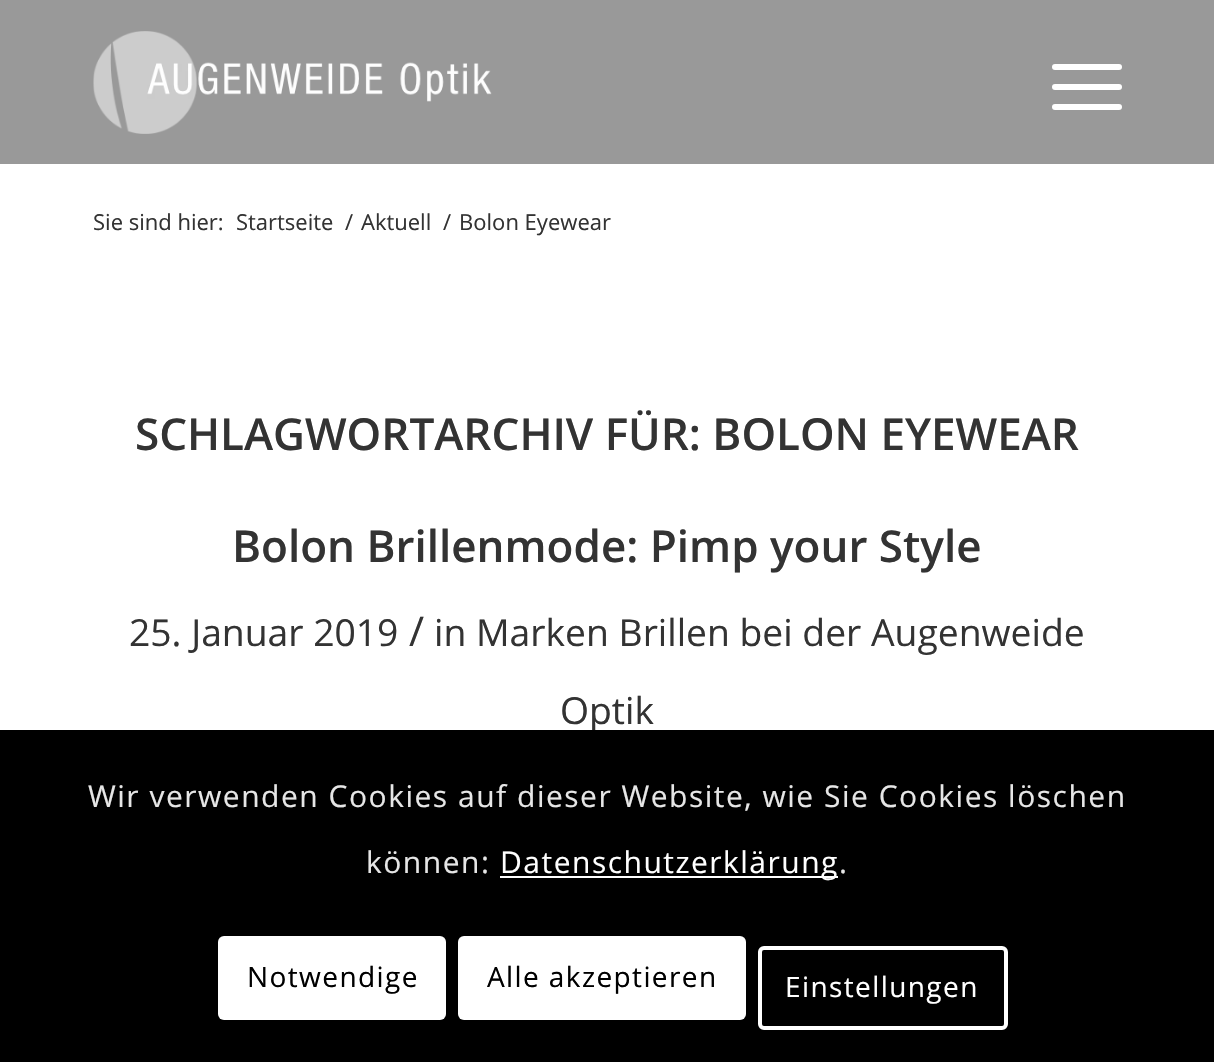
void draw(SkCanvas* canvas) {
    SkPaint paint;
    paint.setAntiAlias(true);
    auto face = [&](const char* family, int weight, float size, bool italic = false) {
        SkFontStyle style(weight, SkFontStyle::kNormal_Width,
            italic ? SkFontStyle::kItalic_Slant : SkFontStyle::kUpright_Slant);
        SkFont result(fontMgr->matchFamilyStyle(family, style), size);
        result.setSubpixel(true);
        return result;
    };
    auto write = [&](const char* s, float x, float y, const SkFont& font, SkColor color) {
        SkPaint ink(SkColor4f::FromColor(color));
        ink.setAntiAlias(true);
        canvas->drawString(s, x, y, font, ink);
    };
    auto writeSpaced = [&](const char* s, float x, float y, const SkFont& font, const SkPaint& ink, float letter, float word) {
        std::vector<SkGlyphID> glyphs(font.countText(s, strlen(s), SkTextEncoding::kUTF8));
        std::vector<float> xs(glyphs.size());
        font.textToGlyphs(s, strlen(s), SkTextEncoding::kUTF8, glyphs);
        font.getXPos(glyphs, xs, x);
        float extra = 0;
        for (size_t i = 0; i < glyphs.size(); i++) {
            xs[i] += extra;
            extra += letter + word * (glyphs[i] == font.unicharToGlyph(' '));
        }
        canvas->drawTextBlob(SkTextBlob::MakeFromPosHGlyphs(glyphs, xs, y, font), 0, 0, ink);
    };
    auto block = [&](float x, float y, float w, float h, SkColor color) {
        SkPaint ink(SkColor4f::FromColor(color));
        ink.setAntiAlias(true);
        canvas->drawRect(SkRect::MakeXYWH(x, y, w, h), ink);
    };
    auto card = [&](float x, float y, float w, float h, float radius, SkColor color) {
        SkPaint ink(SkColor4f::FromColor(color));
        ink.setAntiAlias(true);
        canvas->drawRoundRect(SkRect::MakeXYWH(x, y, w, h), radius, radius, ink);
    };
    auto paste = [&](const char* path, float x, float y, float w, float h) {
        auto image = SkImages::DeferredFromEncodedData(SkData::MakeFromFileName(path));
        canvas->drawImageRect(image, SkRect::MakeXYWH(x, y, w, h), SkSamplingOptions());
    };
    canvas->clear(SK_ColorWHITE);
    block(0, 0, 1214, 164, SkColorSetRGB(153, 153, 153));
    paste("pic1.png", 93, 31, 399, 103);
    card(1052, 84, 70, 6, 3, SK_ColorWHITE);
    card(1052, 64, 70, 6, 3, SK_ColorWHITE);
    card(1052, 104, 70, 6, 3, SK_ColorWHITE);
    auto kFont1 = face("Open Sans", 400, 22);
    write("Sie sind hier:", 93, 230, kFont1, SkColorSetRGB(51, 51, 51));
    write("Startseite", 236, 230, kFont1, SkColorSetRGB(51, 51, 51));
    write("/", 345, 230, kFont1, SkColorSetRGB(51, 51, 51));
    write("Aktuell", 361, 230, kFont1, SkColorSetRGB(51, 51, 51));
    write("/", 443, 230, kFont1, SkColorSetRGB(51, 51, 51));
    write("Bolon Eyewear", 459, 230, kFont1, SkColorSetRGB(51, 51, 51));
    auto kFont2 = face("Open Sans", 600, 44);
    write("SCHLAGWORTARCHIV FÜR: BOLON EYEWEAR", 135, 450, kFont2, SkColorSetRGB(51, 51, 51));
    write("Bolon Brillenmode: Pimp your Style", 232, 562, kFont2, SkColorSetRGB(51, 51, 51));
    auto kFont3 = face("Open Sans", 400, 37.25f);
    write("25. Januar 2019", 129, 646, kFont3, SkColorSetRGB(51, 51, 51));
    auto kFont4 = face("Open Sans", 400, 41);
    write("/", 409, 646, kFont4, SkColorSetRGB(51, 51, 51));
    write("in Marken Brillen bei der Augenweide", 434, 646, kFont3, SkColorSetRGB(51, 51, 51));
    write("Optik", 560, 724, kFont3, SkColorSetRGB(51, 51, 51));
    block(0, 730, 1214, 332, SK_ColorBLACK);
    auto kFont5 = face("Open Sans", 400, 30);
    paint.setColor(SkColorSetRGB(230, 230, 230));
    writeSpaced("Wir verwenden Cookies auf dieser Website, wie Sie Cookies löschen", 88, 807, kFont5, paint, 1.5f, 0);
    writeSpaced("können:", 366, 873, kFont5, paint, 1.5f, 0);
    block(500, 876, 338, 2, SK_ColorWHITE);
    paint.setColor(SK_ColorWHITE);
    writeSpaced("Datenschutzerklärung", 500, 873, kFont5, paint, 1.5f, 0);
    paint.setColor(SkColorSetRGB(230, 230, 230));
    writeSpaced(".", 839, 873, kFont5, paint, 1.5f, 0);
    card(218, 936, 228, 84, 6, SK_ColorWHITE);
    auto kFont6 = face("Open Sans", 400, 28);
    paint.setColor(SK_ColorBLACK);
    writeSpaced("Notwendige", 247, 987, kFont6, paint, 1.4f, 0);
    card(458, 936, 288, 84, 6, SK_ColorWHITE);
    writeSpaced("Alle akzeptieren", 487, 987, kFont6, paint, 1.4f, 0);
    paint.setStyle(SkPaint::kStroke_Style);
    paint.setStrokeWidth(4);
    paint.setColor(SK_ColorWHITE);
    canvas->drawRoundRect(SkRect::MakeXYWH(760, 948, 246, 80), 4, 4, paint);
    paint.setStyle(SkPaint::kFill_Style);
    writeSpaced("Einstellungen", 785, 997, kFont6, paint, 1.4f, 0);
}
